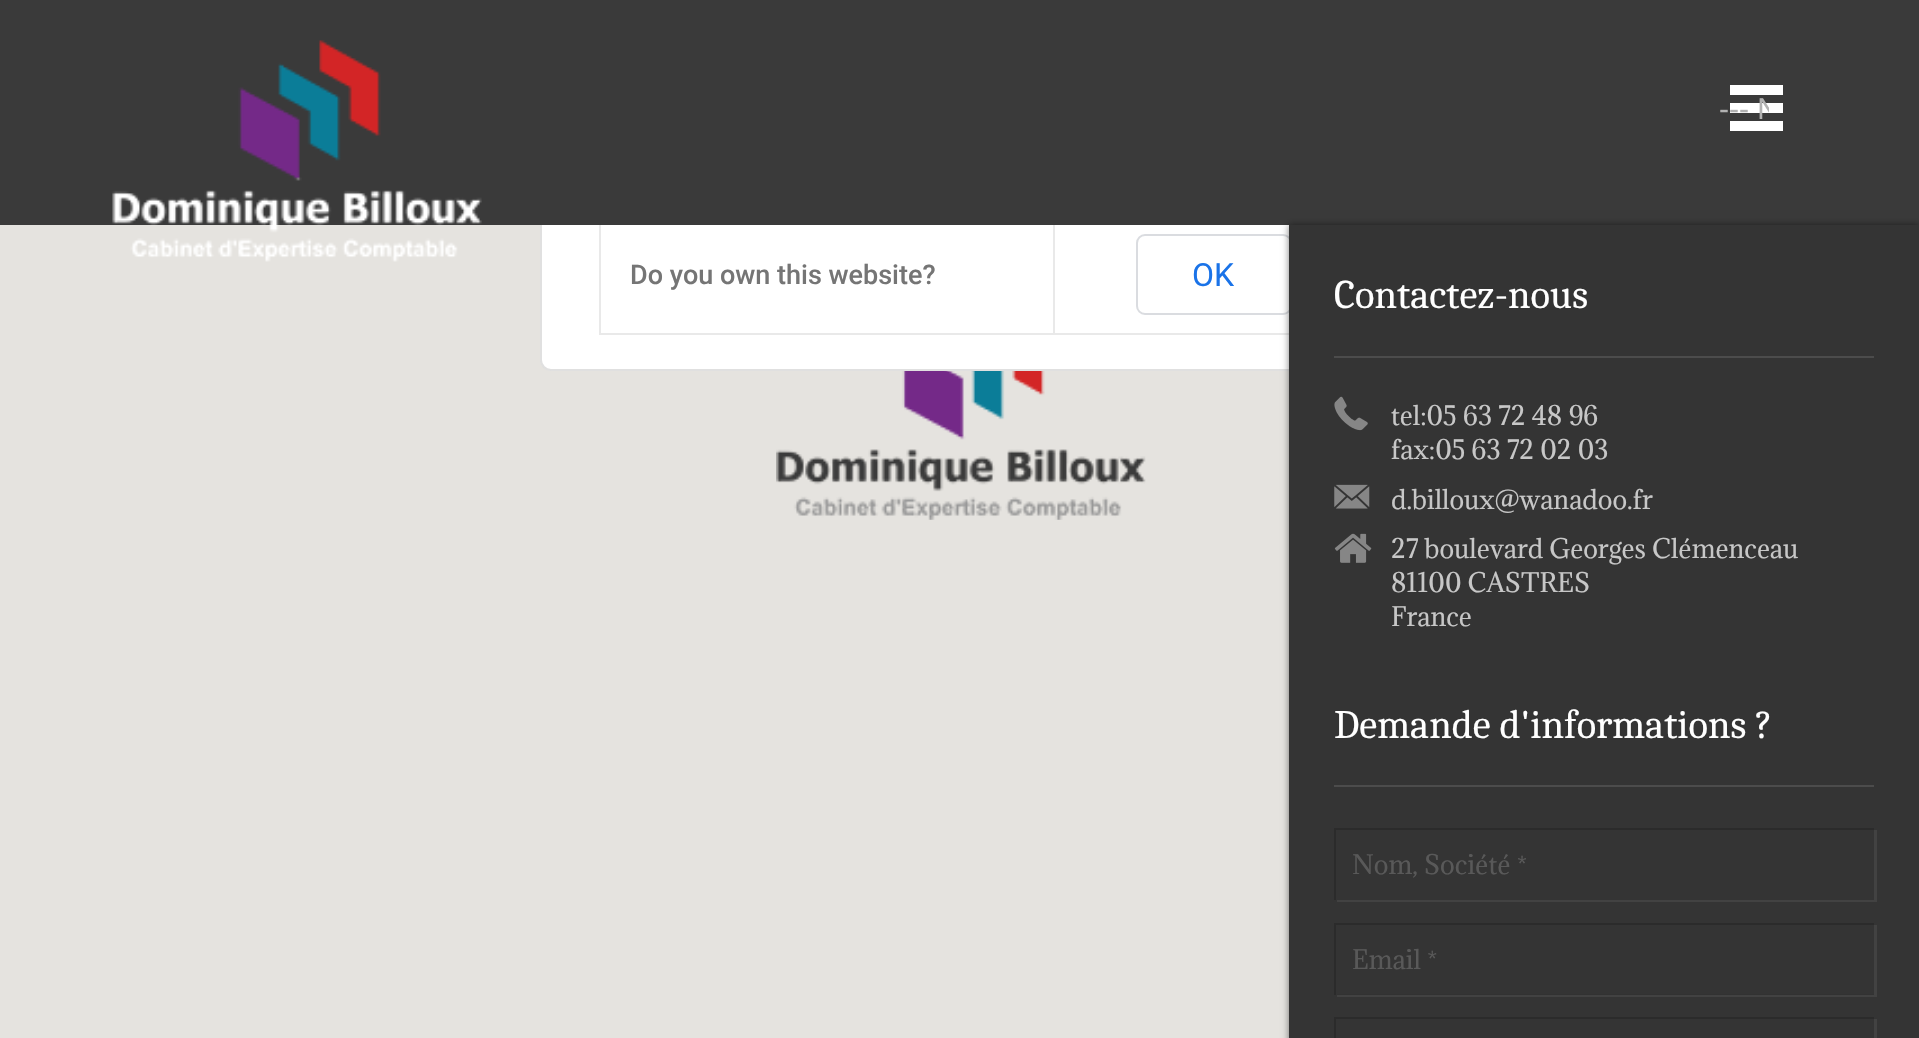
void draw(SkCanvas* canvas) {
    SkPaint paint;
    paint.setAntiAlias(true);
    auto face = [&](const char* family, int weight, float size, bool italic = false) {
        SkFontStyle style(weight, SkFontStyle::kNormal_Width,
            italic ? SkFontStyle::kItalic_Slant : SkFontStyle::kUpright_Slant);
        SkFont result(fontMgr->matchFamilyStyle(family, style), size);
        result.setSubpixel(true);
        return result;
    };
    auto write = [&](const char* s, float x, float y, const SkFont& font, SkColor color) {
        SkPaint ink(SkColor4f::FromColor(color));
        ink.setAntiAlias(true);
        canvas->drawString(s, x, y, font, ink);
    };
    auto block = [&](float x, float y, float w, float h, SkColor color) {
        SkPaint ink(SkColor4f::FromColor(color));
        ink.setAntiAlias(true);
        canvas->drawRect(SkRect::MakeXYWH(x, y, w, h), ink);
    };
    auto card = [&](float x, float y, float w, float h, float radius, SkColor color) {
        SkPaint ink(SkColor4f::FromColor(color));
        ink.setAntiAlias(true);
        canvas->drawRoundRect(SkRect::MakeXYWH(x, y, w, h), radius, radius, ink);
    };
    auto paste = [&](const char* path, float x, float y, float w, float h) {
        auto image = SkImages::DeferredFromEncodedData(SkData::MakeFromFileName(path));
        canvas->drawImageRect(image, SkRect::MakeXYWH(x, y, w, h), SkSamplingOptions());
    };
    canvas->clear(SkColorSetRGB(229, 227, 223));
    card(540, 11, 844, 360, 11, SK_ColorWHITE);
    paint.setStyle(SkPaint::kStroke_Style);
    paint.setStrokeWidth(2);
    paint.setColor(SkColorSetARGB(31, 0, 0, 0));
    canvas->drawRoundRect(SkRect::MakeXYWH(541, 12, 842, 358), 10, 10, paint);
    block(0, 0, 1919, 225, SkColorSetRGB(58, 58, 58));
    paste("pic1.png", 112, 40, 370, 222);
    paint.setStyle(SkPaint::kFill_Style);
    paint.setColor(SK_ColorWHITE);
    canvas->drawPath(SkPathBuilder().moveTo(1729, 131).lineTo(1729, 131).close().moveTo(1730, 85).lineTo(1783, 85).lineTo(1783, 95).lineTo(1730, 95).close().moveTo(1730, 103).lineTo(1783, 103).lineTo(1783, 113).lineTo(1730, 113).close().moveTo(1730, 121).lineTo(1783, 121).lineTo(1783, 131).lineTo(1730, 131).close().detach(), paint);
    canvas->save();
    canvas->clipRect(SkRect::MakeXYWH(1719, 90, 50, 38));
    auto kFont1 = face("Liberation Sans", 400, 30);
    write("--- N", 1719, 119, kFont1, SkColorSetRGB(178, 178, 178));
    canvas->restore();
    block(599, 333, 690, 2, SkColorSetRGB(233, 233, 233));
    block(599, 225, 2, 110, SkColorSetRGB(233, 233, 233));
    block(1053, 225, 2, 110, SkColorSetRGB(233, 233, 233));
    auto kFont2 = face("Roboto", 500, 27);
    write("Do you own this website?", 630, 284, kFont2, SkColorSetRGB(117, 117, 117));
    paint.setStyle(SkPaint::kStroke_Style);
    paint.setColor(SkColorSetRGB(218, 220, 224));
    canvas->drawRoundRect(SkRect::MakeXYWH(1137, 235, 154, 79), 8, 8, paint);
    auto kFont3 = face("Roboto", 400, 32);
    write("OK", 1192, 286, kFont3, SkColorSetRGB(26, 115, 232));
    paste("pic2.png", 776, 371, 370, 149);
    paint.setStyle(SkPaint::kFill_Style);
    paint.setColor(SkColorSetARGB(128, 0, 0, 0));
    paint.setMaskFilter(SkMaskFilter::MakeBlur(kNormal_SkBlurStyle, 3.5f));
    canvas->drawRect(SkRect::MakeXYWH(1289, 225, 630, 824), paint);
    paint.setMaskFilter(nullptr);
    block(1289, 225, 630, 813, SkColorSetRGB(52, 52, 52));
    auto kFont4 = face("Caladea", 400, 40.5f);
    write("Contactez-nous", 1334, 308, kFont4, SK_ColorWHITE);
    block(1334, 356, 540, 2, SkColorSetRGB(76, 76, 76));
    paste("pic3.png", 1334, 396, 34, 35);
    auto kFont5 = face("Adamina", 400, 24.75f);
    write("tel:05 63 72 48 96", 1391, 425, kFont5, SkColorSetRGB(199, 199, 199));
    write("fax:05 63 72 02 03", 1391, 459, kFont5, SkColorSetRGB(199, 199, 199));
    paste("pic4.png", 1334, 484, 36, 25);
    write("d.billoux@wanadoo.fr", 1391, 509, kFont5, SkColorSetRGB(199, 199, 199));
    paste("pic5.png", 1334, 533, 38, 30);
    write("27 boulevard Georges Clémenceau", 1391, 558, kFont5, SkColorSetRGB(199, 199, 199));
    write("81100 CASTRES", 1391, 592, kFont5, SkColorSetRGB(199, 199, 199));
    write("France", 1391, 626, kFont5, SkColorSetRGB(199, 199, 199));
    write("Demande d'informations ?", 1334, 738, kFont4, SK_ColorWHITE);
    block(1334, 785, 540, 2, SkColorSetRGB(76, 76, 76));
    paint.setColor(SkColorSetRGB(66, 66, 66));
    canvas->drawPath(SkPathBuilder().moveTo(1337, 900).lineTo(1337, 902).lineTo(1877, 902).lineTo(1877, 830).lineTo(1874, 830).lineTo(1874, 900).close().detach(), paint);
    canvas->save();
    canvas->clipRect(SkRect::MakeXYWH(1334, 828, 540, 72));
    paint.setColor(SkColorSetRGB(43, 43, 43));
    canvas->drawPath(SkPathBuilder(SkPathFillType::kEvenOdd).moveTo(1112, 605).lineTo(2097, 605).lineTo(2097, 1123).lineTo(1112, 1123).close().moveTo(1336, 830).lineTo(1876, 830).lineTo(1876, 902).lineTo(1336, 902).close().detach(), paint);
    canvas->restore();
    write("Nom, Société *", 1352, 874, kFont5, SkColorSetRGB(89, 89, 89));
    paint.setColor(SkColorSetRGB(66, 66, 66));
    canvas->drawPath(SkPathBuilder().moveTo(1337, 994).lineTo(1337, 997).lineTo(1877, 997).lineTo(1877, 925).lineTo(1874, 925).lineTo(1874, 994).close().detach(), paint);
    block(1337, 994, 537, 1, SkColorSetRGB(50, 50, 50));
    canvas->save();
    canvas->clipRect(SkRect::MakeXYWH(1334, 923, 540, 72));
    paint.setColor(SkColorSetRGB(43, 43, 43));
    canvas->drawPath(SkPathBuilder(SkPathFillType::kEvenOdd).moveTo(1112, 700).lineTo(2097, 700).lineTo(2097, 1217).lineTo(1112, 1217).close().moveTo(1336, 925).lineTo(1876, 925).lineTo(1876, 997).lineTo(1336, 997).close().detach(), paint);
    canvas->restore();
    write("Email *", 1352, 969, kFont5, SkColorSetRGB(89, 89, 89));
    paint.setColor(SkColorSetRGB(66, 66, 66));
    canvas->drawPath(SkPathBuilder().moveTo(1337, 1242).lineTo(1337, 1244).lineTo(1877, 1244).lineTo(1877, 1019).lineTo(1874, 1019).lineTo(1874, 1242).close().detach(), paint);
    canvas->save();
    canvas->clipRect(SkRect::MakeXYWH(1334, 1017, 540, 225));
    paint.setColor(SkColorSetRGB(43, 43, 43));
    canvas->drawPath(SkPathBuilder(SkPathFillType::kEvenOdd).moveTo(1112, 794).lineTo(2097, 794).lineTo(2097, 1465).lineTo(1112, 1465).close().moveTo(1336, 1019).lineTo(1876, 1019).lineTo(1876, 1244).lineTo(1336, 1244).close().detach(), paint);
    canvas->restore();
}
